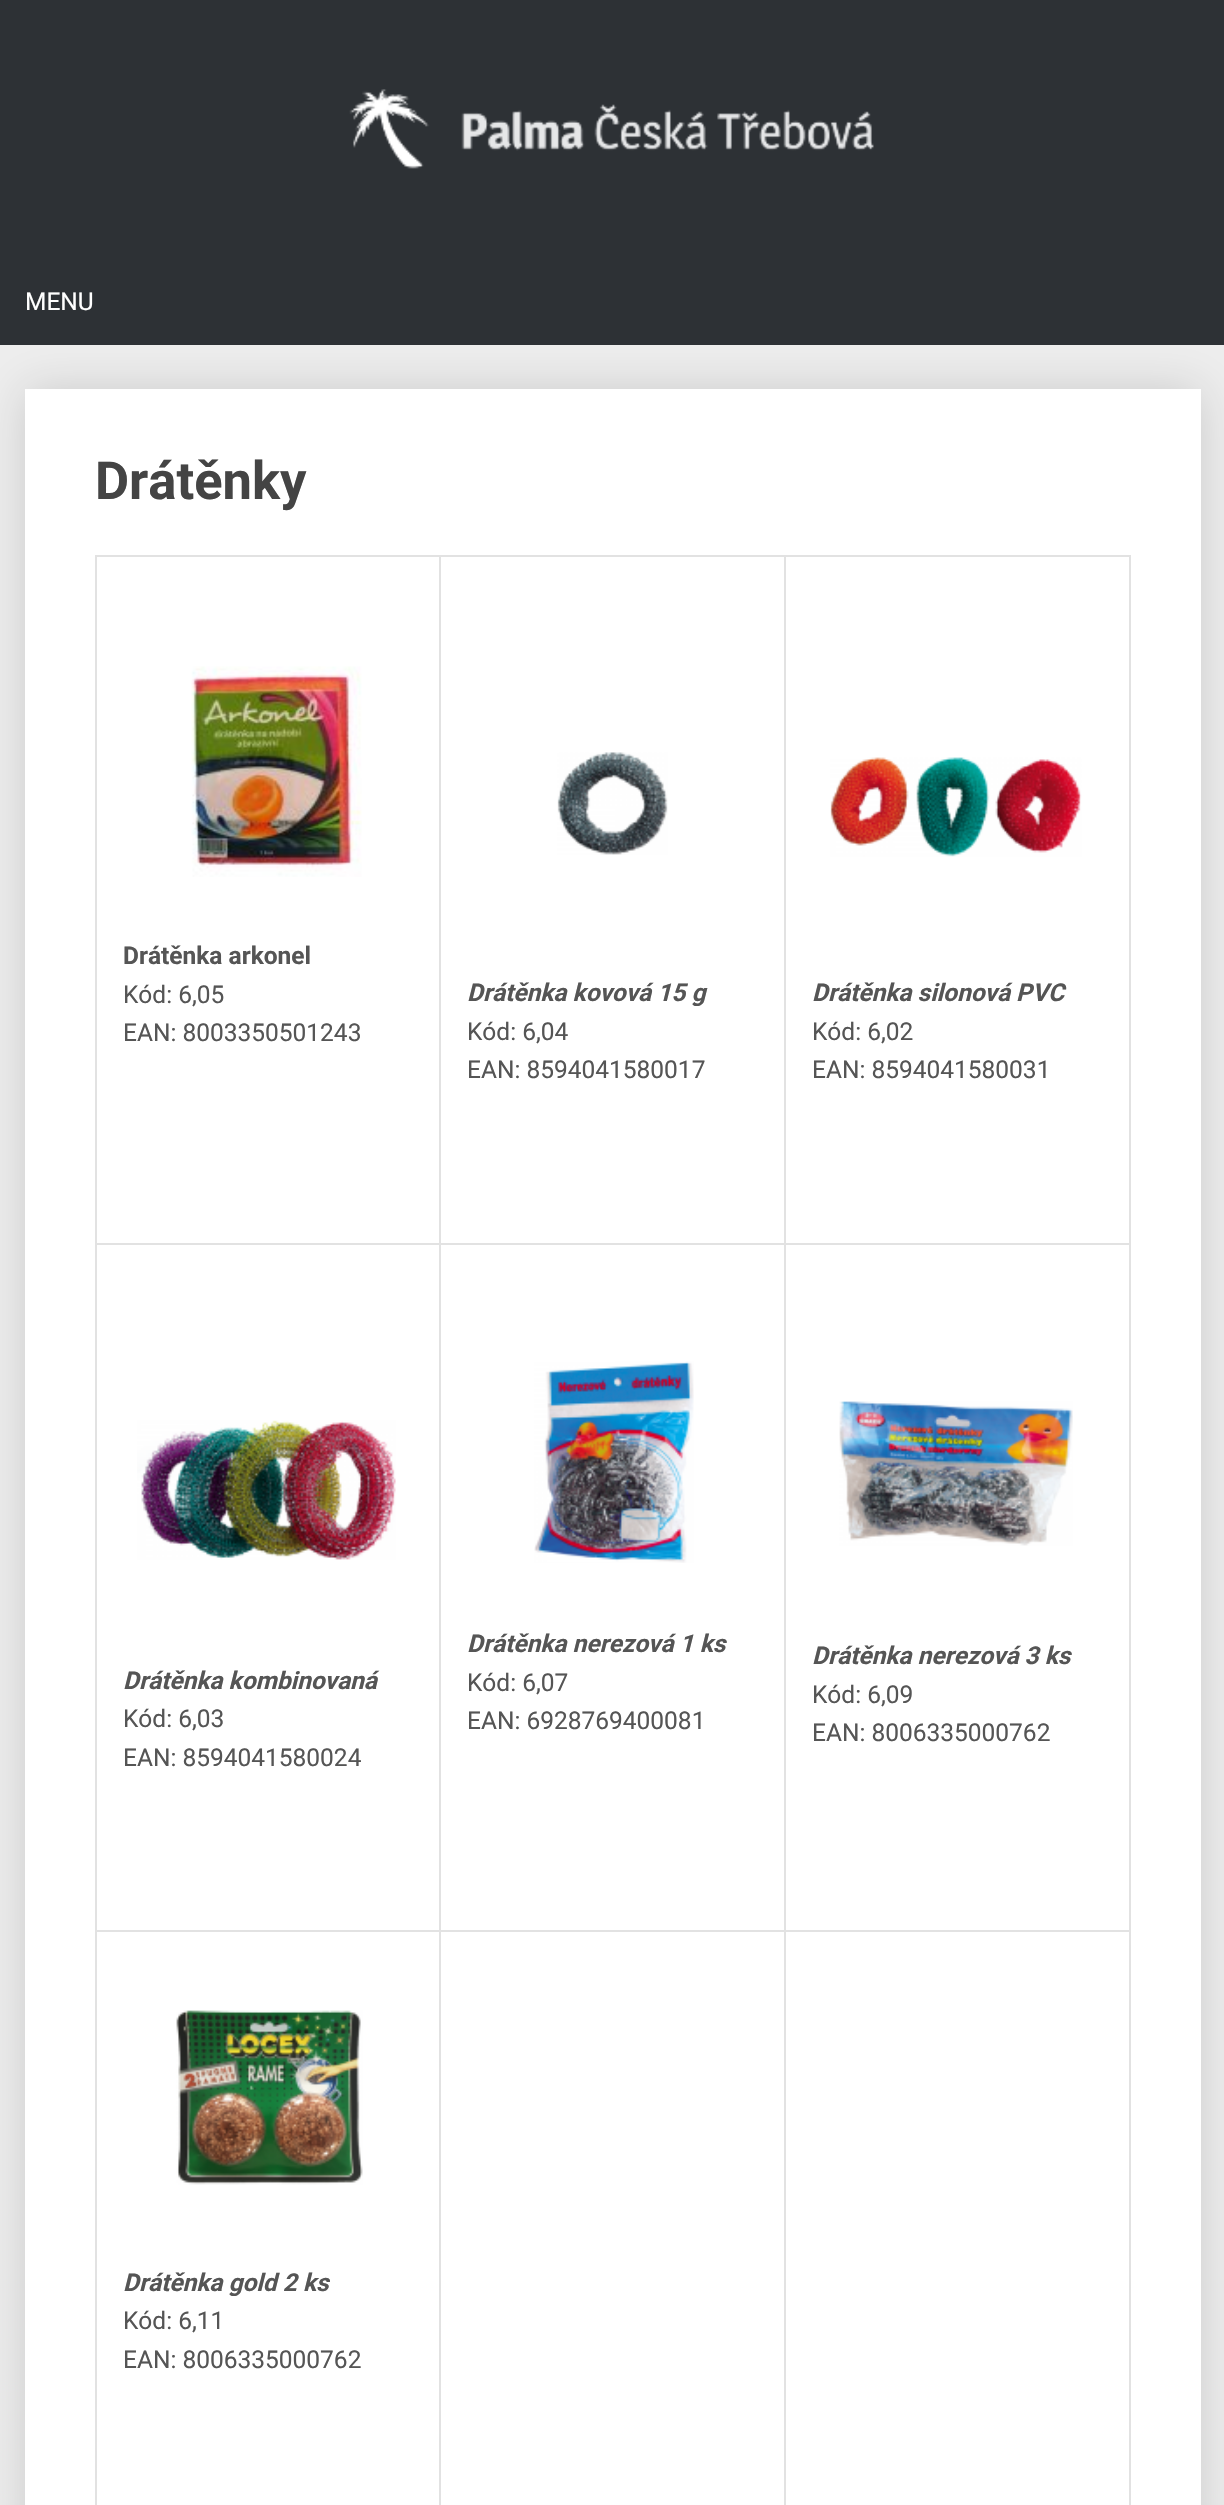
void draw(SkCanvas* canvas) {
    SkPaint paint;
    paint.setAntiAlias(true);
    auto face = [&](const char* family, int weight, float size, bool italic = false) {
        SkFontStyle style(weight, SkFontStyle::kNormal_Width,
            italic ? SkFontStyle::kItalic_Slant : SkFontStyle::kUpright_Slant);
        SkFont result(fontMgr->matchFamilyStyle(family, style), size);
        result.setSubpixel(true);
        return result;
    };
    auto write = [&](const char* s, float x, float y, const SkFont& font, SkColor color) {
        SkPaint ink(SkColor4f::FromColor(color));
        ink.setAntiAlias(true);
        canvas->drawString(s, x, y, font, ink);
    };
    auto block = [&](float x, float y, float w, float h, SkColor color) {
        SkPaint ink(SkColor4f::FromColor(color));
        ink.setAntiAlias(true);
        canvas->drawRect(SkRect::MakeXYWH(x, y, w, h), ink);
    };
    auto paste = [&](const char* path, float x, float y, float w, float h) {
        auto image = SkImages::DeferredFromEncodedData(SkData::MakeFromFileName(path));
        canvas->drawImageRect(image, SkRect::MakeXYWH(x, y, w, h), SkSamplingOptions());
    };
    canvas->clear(SkColorSetRGB(238, 238, 238));
    paint.setColor(SkColorSetARGB(38, 0, 0, 0));
    paint.setMaskFilter(SkMaskFilter::MakeBlur(kNormal_SkBlurStyle, 22));
    canvas->drawRect(SkRect::MakeXYWH(25, 389, 1176, 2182), paint);
    paint.setMaskFilter(nullptr);
    block(0, 0, 1224, 345, SkColorSetRGB(45, 49, 53));
    paste("pic1.png", 349, 89, 525, 80);
    auto kFont1 = face("Roboto", 400, 24.5f);
    write("MENU", 25, 310, kFont1, SK_ColorWHITE);
    block(25, 389, 1176, 2116, SK_ColorWHITE);
    auto kFont2 = face("Roboto", 700, 52.5f);
    write("Drátěnky", 95, 499, kFont2, SkColorSetRGB(68, 68, 68));
    block(784, 555, 347, 2, SkColorSetRGB(226, 226, 226));
    block(784, 1243, 347, 2, SkColorSetRGB(226, 226, 226));
    block(784, 1930, 347, 2, SkColorSetRGB(226, 226, 226));
    block(784, 1930, 2, 575, SkColorSetRGB(226, 226, 226));
    block(439, 1930, 347, 2, SkColorSetRGB(226, 226, 226));
    block(784, 1243, 2, 689, SkColorSetRGB(226, 226, 226));
    block(439, 1243, 347, 2, SkColorSetRGB(226, 226, 226));
    block(784, 555, 2, 689, SkColorSetRGB(226, 226, 226));
    block(439, 555, 347, 2, SkColorSetRGB(226, 226, 226));
    block(439, 1930, 2, 575, SkColorSetRGB(226, 226, 226));
    block(95, 1930, 346, 2, SkColorSetRGB(226, 226, 226));
    block(439, 1243, 2, 689, SkColorSetRGB(226, 226, 226));
    block(95, 1243, 346, 2, SkColorSetRGB(226, 226, 226));
    block(439, 555, 2, 689, SkColorSetRGB(226, 226, 226));
    block(95, 555, 346, 2, SkColorSetRGB(226, 226, 226));
    block(95, 1930, 2, 575, SkColorSetRGB(226, 226, 226));
    block(95, 1243, 2, 689, SkColorSetRGB(226, 226, 226));
    block(95, 555, 2, 689, SkColorSetRGB(226, 226, 226));
    paste("pic2.png", 191, 666, 171, 211);
    auto kFont3 = face("Roboto", 700, 24.5f);
    write("Drátěnka arkonel", 123, 964, kFont3, SkColorSetRGB(85, 85, 85));
    write("Kód: 6,05", 123, 1003, kFont1, SkColorSetRGB(85, 85, 85));
    write("EAN: 8003350501243", 123, 1041, kFont1, SkColorSetRGB(85, 85, 85));
    paste("pic3.png", 557, 752, 111, 103);
    auto kFont4 = face("Roboto", 700, 24.5f, true);
    write("Drátěnka kovová 15 g", 467, 1001, kFont4, SkColorSetRGB(85, 85, 85));
    write("Kód: 6,04", 467, 1040, kFont1, SkColorSetRGB(85, 85, 85));
    write("EAN: 8594041580017", 467, 1078, kFont1, SkColorSetRGB(85, 85, 85));
    block(1129, 1930, 2, 575, SkColorSetRGB(226, 226, 226));
    block(1129, 1243, 2, 689, SkColorSetRGB(226, 226, 226));
    block(1129, 555, 2, 689, SkColorSetRGB(226, 226, 226));
    paste("pic4.png", 830, 757, 252, 100);
    write("Drátěnka silonová PVC", 812, 1001, kFont4, SkColorSetRGB(85, 85, 85));
    write("Kód: 6,02", 812, 1040, kFont1, SkColorSetRGB(85, 85, 85));
    write("EAN: 8594041580031", 812, 1078, kFont1, SkColorSetRGB(85, 85, 85));
    paste("pic5.png", 137, 1420, 259, 140);
    write("Drátěnka kombinovaná", 123, 1689, kFont4, SkColorSetRGB(85, 85, 85));
    write("Kód: 6,03", 123, 1727, kFont1, SkColorSetRGB(85, 85, 85));
    write("EAN: 8594041580024", 123, 1766, kFont1, SkColorSetRGB(85, 85, 85));
    paste("pic6.png", 534, 1361, 160, 202);
    write("Drátěnka nerezová 1 ks", 467, 1652, kFont4, SkColorSetRGB(85, 85, 85));
    write("Kód: 6,07", 467, 1691, kFont1, SkColorSetRGB(85, 85, 85));
    write("EAN: 6928769400081", 467, 1729, kFont1, SkColorSetRGB(85, 85, 85));
    paste("pic7.png", 839, 1401, 234, 145);
    write("Drátěnka nerezová 3 ks", 812, 1664, kFont4, SkColorSetRGB(85, 85, 85));
    write("Kód: 6,09", 812, 1703, kFont1, SkColorSetRGB(85, 85, 85));
    write("EAN: 8006335000762", 812, 1741, kFont1, SkColorSetRGB(85, 85, 85));
    paste("pic8.png", 176, 2010, 187, 175);
    write("Drátěnka gold 2 ks", 123, 2291, kFont4, SkColorSetRGB(85, 85, 85));
    write("Kód: 6,11", 123, 2329, kFont1, SkColorSetRGB(85, 85, 85));
    write("EAN: 8006335000762", 123, 2368, kFont1, SkColorSetRGB(85, 85, 85));
}
